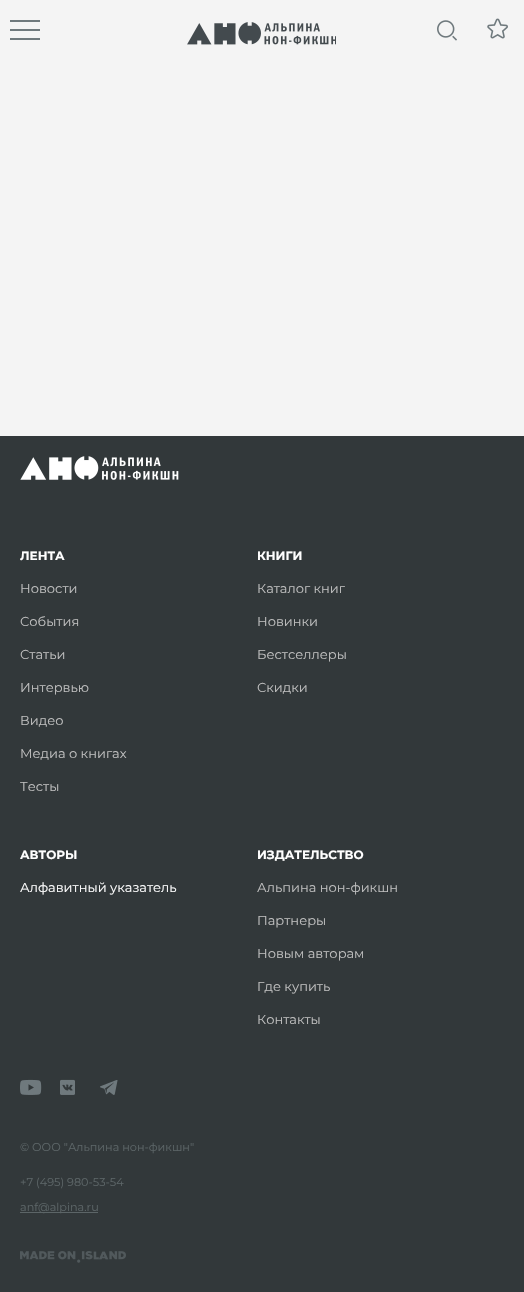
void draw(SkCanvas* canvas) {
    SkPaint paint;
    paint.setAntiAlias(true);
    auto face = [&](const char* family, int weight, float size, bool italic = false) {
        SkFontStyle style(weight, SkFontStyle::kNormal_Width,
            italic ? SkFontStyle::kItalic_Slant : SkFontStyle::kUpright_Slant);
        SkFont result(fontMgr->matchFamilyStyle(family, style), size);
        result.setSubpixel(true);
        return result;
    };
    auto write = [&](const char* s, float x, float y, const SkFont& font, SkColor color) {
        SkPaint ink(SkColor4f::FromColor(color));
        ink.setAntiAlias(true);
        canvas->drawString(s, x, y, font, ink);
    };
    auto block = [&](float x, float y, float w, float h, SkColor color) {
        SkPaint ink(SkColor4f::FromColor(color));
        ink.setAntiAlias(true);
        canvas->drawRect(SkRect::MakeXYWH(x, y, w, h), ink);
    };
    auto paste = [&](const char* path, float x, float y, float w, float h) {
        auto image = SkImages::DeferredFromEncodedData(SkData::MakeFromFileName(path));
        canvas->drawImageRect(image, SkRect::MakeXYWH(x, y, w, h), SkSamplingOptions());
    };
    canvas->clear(SkColorSetRGB(244, 244, 244));
    block(10, 20, 30, 2, SkColorSetRGB(111, 121, 125));
    block(10, 29, 30, 2, SkColorSetRGB(111, 121, 125));
    block(10, 38, 30, 2, SkColorSetRGB(111, 121, 125));
    paste("pic1.png", 187, 22, 149, 23);
    paste("pic2.png", 437, 20, 20, 21);
    paste("pic3.png", 487, 18, 21, 21);
    block(0, 436, 524, 856, SkColorSetRGB(50, 56, 58));
    paste("pic4.png", 20, 456, 159, 24);
    auto kFont1 = face("Montserrat", 700, 12);
    write("ЛЕНТА", 20, 560, kFont1, SK_ColorWHITE);
    auto kFont2 = face("Montserrat", 400, 13);
    write("Новости", 20, 593, kFont2, SkColorSetRGB(191, 191, 191));
    write("События", 20, 626, kFont2, SkColorSetRGB(191, 191, 191));
    write("Статьи", 20, 659, kFont2, SkColorSetRGB(191, 191, 191));
    write("Интервью", 20, 692, kFont2, SkColorSetRGB(191, 191, 191));
    write("Видео", 20, 725, kFont2, SkColorSetRGB(191, 191, 191));
    write("Медиа о книгах", 20, 758, kFont2, SkColorSetRGB(191, 191, 191));
    write("Тесты", 20, 791, kFont2, SkColorSetRGB(191, 191, 191));
    write("КНИГИ", 257, 560, kFont1, SK_ColorWHITE);
    write("Каталог книг", 257, 593, kFont2, SkColorSetRGB(191, 191, 191));
    write("Новинки", 257, 626, kFont2, SkColorSetRGB(191, 191, 191));
    write("Бестселлеры", 257, 659, kFont2, SkColorSetRGB(191, 191, 191));
    write("Скидки", 257, 692, kFont2, SkColorSetRGB(191, 191, 191));
    write("АВТОРЫ", 20, 859, kFont1, SK_ColorWHITE);
    write("Алфавитный указатель", 20, 892, kFont2, SK_ColorWHITE);
    write("ИЗДАТЕЛЬСТВО", 257, 859, kFont1, SK_ColorWHITE);
    write("Альпина нон-фикшн", 257, 892, kFont2, SkColorSetRGB(191, 191, 191));
    write("Партнеры", 257, 925, kFont2, SkColorSetRGB(191, 191, 191));
    write("Новым авторам", 257, 958, kFont2, SkColorSetRGB(191, 191, 191));
    write("Где купить", 257, 991, kFont2, SkColorSetRGB(191, 191, 191));
    write("Контакты", 257, 1024, kFont2, SkColorSetRGB(191, 191, 191));
    paste("pic5.png", 20, 1079, 22, 16);
    paste("pic6.png", 60, 1079, 15, 16);
    paste("pic7.png", 100, 1080, 18, 15);
    auto kFont3 = face("Montserrat", 400, 11.25f);
    write("© ООО \"Альпина нон-фикшн\"", 20, 1151, kFont3, SkColorSetRGB(92, 101, 103));
    write("+7 (495) 980-53-54", 20, 1186, kFont3, SkColorSetRGB(92, 101, 103));
    block(20, 1212, 78, 1, SkColorSetRGB(92, 101, 103));
    write("anf@alpina.ru", 20, 1211, kFont3, SkColorSetRGB(92, 101, 103));
    paste("pic8.png", 20, 1251, 106, 12);
}
